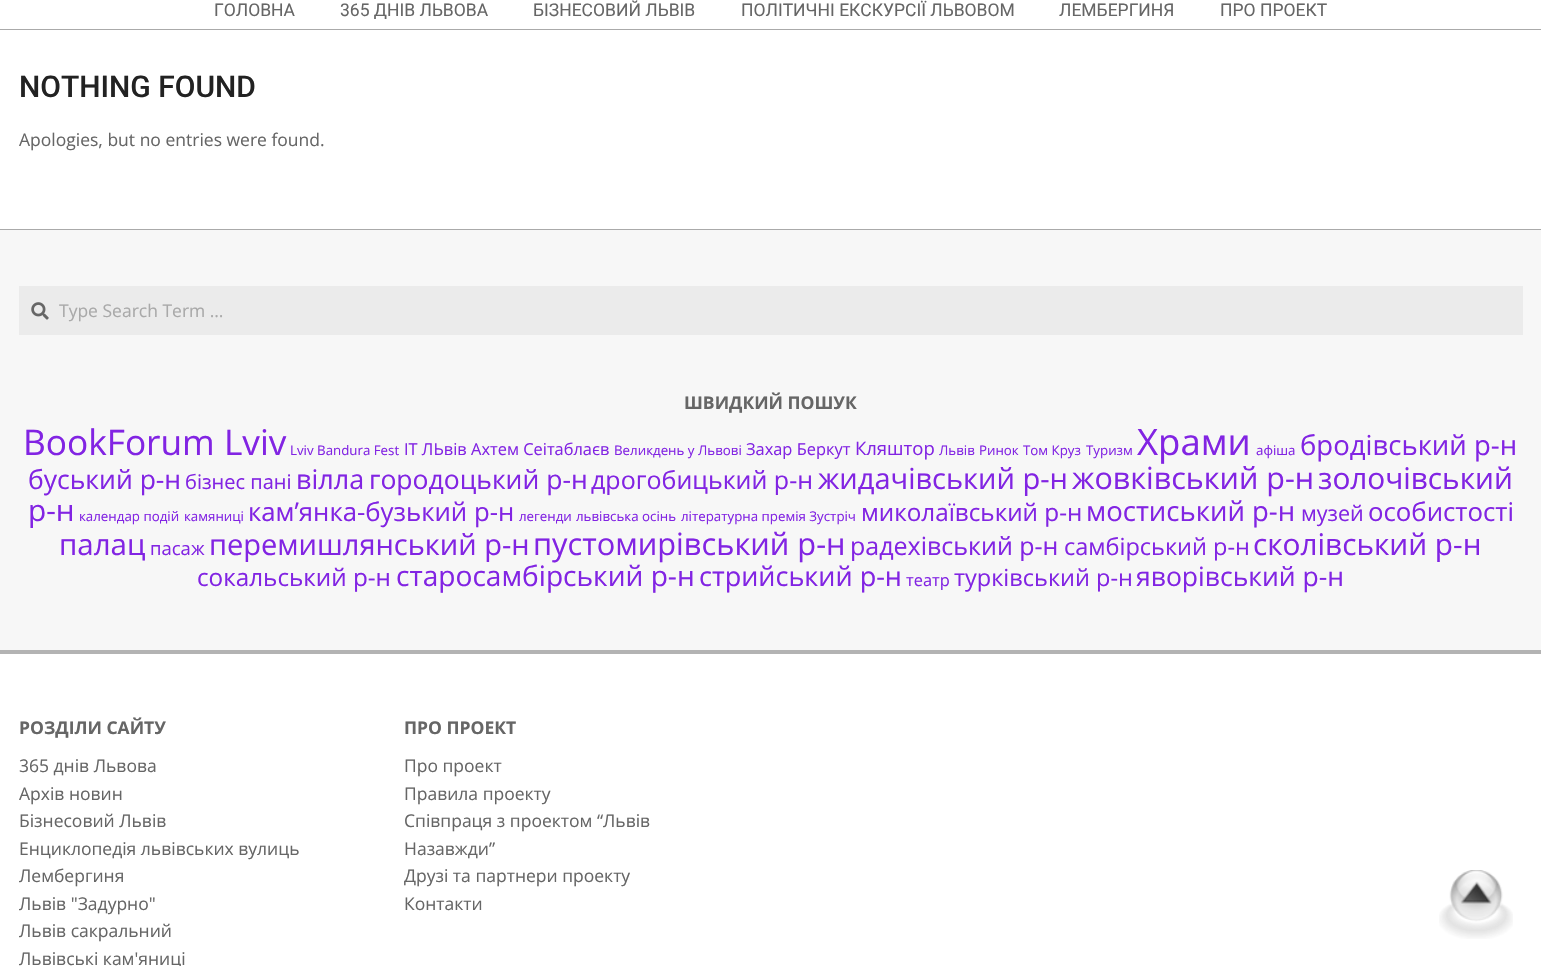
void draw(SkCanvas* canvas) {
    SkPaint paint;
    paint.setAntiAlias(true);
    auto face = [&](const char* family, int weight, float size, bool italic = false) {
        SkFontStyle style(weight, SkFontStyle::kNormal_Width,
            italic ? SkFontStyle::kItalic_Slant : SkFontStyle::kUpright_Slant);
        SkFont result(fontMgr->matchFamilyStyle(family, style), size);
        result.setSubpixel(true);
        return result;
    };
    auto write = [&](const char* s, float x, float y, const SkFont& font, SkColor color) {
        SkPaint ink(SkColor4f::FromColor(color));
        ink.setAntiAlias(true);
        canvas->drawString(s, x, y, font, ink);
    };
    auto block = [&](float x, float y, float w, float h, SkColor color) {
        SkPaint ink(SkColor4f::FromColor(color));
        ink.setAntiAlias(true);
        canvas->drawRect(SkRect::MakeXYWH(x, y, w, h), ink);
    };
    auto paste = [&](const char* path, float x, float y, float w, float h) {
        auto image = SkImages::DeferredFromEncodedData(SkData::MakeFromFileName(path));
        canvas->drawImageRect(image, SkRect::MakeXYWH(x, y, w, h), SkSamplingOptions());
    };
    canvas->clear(SK_ColorWHITE);
    block(0, 29, 1541, 1, SkColorSetRGB(170, 170, 170));
    auto kFont1 = face("Roboto", 400, 17.5f);
    write("ГОЛОВНА", 214, 16, kFont1, SkColorSetRGB(102, 102, 102));
    write("365 ДНІВ ЛЬВОВА", 340, 16, kFont1, SkColorSetRGB(102, 102, 102));
    write("БІЗНЕСОВИЙ ЛЬВІВ", 533, 16, kFont1, SkColorSetRGB(102, 102, 102));
    write("ПОЛІТИЧНІ ЕКСКУРСІЇ ЛЬВОВОМ", 741, 16, kFont1, SkColorSetRGB(102, 102, 102));
    write("ЛЕМБЕРГИНЯ", 1059, 16, kFont1, SkColorSetRGB(102, 102, 102));
    write("ПРО ПРОЕКТ", 1220, 16, kFont1, SkColorSetRGB(102, 102, 102));
    auto kFont2 = face("Roboto", 500, 30);
    write("NOTHING FOUND", 19, 97, kFont2, SkColorSetRGB(34, 34, 34));
    auto kFont3 = face("Open Sans", 400, 17.5f);
    write("Apologies, but no entries were found.", 19, 146, kFont3, SkColorSetRGB(102, 102, 102));
    block(0, 230, 1541, 420, SkColorSetRGB(247, 247, 247));
    block(0, 229, 1541, 1, SkColorSetRGB(170, 170, 170));
    block(19, 286, 1504, 49, SkColorSetRGB(235, 235, 235));
    paste("pic1.png", 31, 302, 18, 18);
    write("Type Search Term …", 59, 317, kFont3, SkColorSetRGB(169, 169, 169));
    auto kFont4 = face("Open Sans", 700, 17.5f);
    write("ШВИДКИЙ ПОШУК", 684, 409, kFont4, SkColorSetRGB(102, 102, 102));
    auto kFont5 = face("Open Sans", 400, 35.25f);
    write("BookForum Lviv", 23, 455, kFont5, SkColorSetRGB(130, 36, 227));
    auto kFont6 = face("Open Sans", 400, 13.3f);
    write("Lviv Bandura Fest", 290, 455, kFont6, SkColorSetRGB(130, 36, 227));
    auto kFont7 = face("Open Sans", 400, 16.4f);
    write("ІТ ЛЬвів Ахтем Сеітаблаєв", 404, 455, kFont7, SkColorSetRGB(130, 36, 227));
    write("Великдень у Львові", 614, 455, kFont6, SkColorSetRGB(130, 36, 227));
    write("Захар Беркут", 746, 455, kFont7, SkColorSetRGB(130, 36, 227));
    auto kFont8 = face("Open Sans", 400, 18.5f);
    write("Кляштор", 855, 455, kFont8, SkColorSetRGB(130, 36, 227));
    write("Львів", 939, 455, kFont6, SkColorSetRGB(130, 36, 227));
    write("Ринок", 979, 455, kFont6, SkColorSetRGB(130, 36, 227));
    write("Том Круз", 1023, 455, kFont6, SkColorSetRGB(130, 36, 227));
    write("Туризм", 1086, 455, kFont6, SkColorSetRGB(130, 36, 227));
    auto kFont9 = face("Open Sans", 400, 36.5f);
    write("Храми", 1137, 455, kFont9, SkColorSetRGB(130, 36, 227));
    write("афіша", 1256, 455, kFont6, SkColorSetRGB(130, 36, 227));
    auto kFont10 = face("Open Sans", 400, 27.5f);
    write("бродівський р-н", 1300, 455, kFont10, SkColorSetRGB(130, 36, 227));
    auto kFont11 = face("Open Sans", 400, 26.5f);
    write("буський р-н", 28, 489, kFont11, SkColorSetRGB(130, 36, 227));
    auto kFont12 = face("Open Sans", 400, 20);
    write("бізнес пані", 185, 489, kFont12, SkColorSetRGB(130, 36, 227));
    auto kFont13 = face("Open Sans", 400, 27);
    write("вілла", 296, 489, kFont13, SkColorSetRGB(130, 36, 227));
    write("городоцький р-н", 369, 489, kFont11, SkColorSetRGB(130, 36, 227));
    auto kFont14 = face("Open Sans", 400, 25);
    write("дрогобицький р-н", 591, 489, kFont14, SkColorSetRGB(130, 36, 227));
    auto kFont15 = face("Open Sans", 400, 29);
    write("жидачівський р-н", 818, 489, kFont15, SkColorSetRGB(130, 36, 227));
    auto kFont16 = face("Open Sans", 400, 30.5f);
    write("жовківський р-н", 1072, 489, kFont16, SkColorSetRGB(130, 36, 227));
    auto kFont17 = face("Open Sans", 400, 29.75f);
    write("золочівський", 1318, 489, kFont17, SkColorSetRGB(130, 36, 227));
    write("р-н", 28, 521, kFont17, SkColorSetRGB(130, 36, 227));
    write("календар подій", 79, 521, kFont6, SkColorSetRGB(130, 36, 227));
    write("камяниці", 184, 521, kFont6, SkColorSetRGB(130, 36, 227));
    auto kFont18 = face("Open Sans", 400, 25.75f);
    write("кам’янка-бузький р-н", 248, 521, kFont18, SkColorSetRGB(130, 36, 227));
    write("легенди", 519, 521, kFont6, SkColorSetRGB(130, 36, 227));
    write("львівська осінь", 576, 521, kFont6, SkColorSetRGB(130, 36, 227));
    write("літературна премія Зустріч", 681, 521, kFont6, SkColorSetRGB(130, 36, 227));
    auto kFont19 = face("Open Sans", 400, 24.25f);
    write("миколаївський р-н", 861, 521, kFont19, SkColorSetRGB(130, 36, 227));
    write("мостиський р-н", 1086, 521, kFont10, SkColorSetRGB(130, 36, 227));
    auto kFont20 = face("Open Sans", 400, 21.5f);
    write("музей", 1301, 521, kFont20, SkColorSetRGB(130, 36, 227));
    write("особистості", 1368, 521, kFont18, SkColorSetRGB(130, 36, 227));
    auto kFont21 = face("Open Sans", 400, 29.5f);
    write("палац", 59, 555, kFont21, SkColorSetRGB(130, 36, 227));
    write("пасаж", 150, 555, kFont8, SkColorSetRGB(130, 36, 227));
    write("перемишлянський р-н", 209, 555, kFont15, SkColorSetRGB(130, 36, 227));
    auto kFont22 = face("Open Sans", 400, 30.75f);
    write("пустомирівський р-н", 533, 555, kFont22, SkColorSetRGB(130, 36, 227));
    write("радехівський р-н", 850, 555, kFont14, SkColorSetRGB(130, 36, 227));
    auto kFont23 = face("Open Sans", 400, 23.5f);
    write("самбірський р-н", 1064, 555, kFont23, SkColorSetRGB(130, 36, 227));
    write("сколівський р-н", 1253, 555, kFont17, SkColorSetRGB(130, 36, 227));
    write("сокальський р-н", 197, 586, kFont19, SkColorSetRGB(130, 36, 227));
    auto kFont24 = face("Open Sans", 400, 28.1f);
    write("старосамбірський р-н", 396, 586, kFont24, SkColorSetRGB(130, 36, 227));
    write("стрийський р-н", 699, 586, kFont13, SkColorSetRGB(130, 36, 227));
    write("театр", 906, 586, kFont7, SkColorSetRGB(130, 36, 227));
    write("турківський р-н", 954, 586, kFont23, SkColorSetRGB(130, 36, 227));
    write("яворівський р-н", 1136, 586, kFont11, SkColorSetRGB(130, 36, 227));
    block(0, 650, 1541, 4, SkColorSetRGB(179, 179, 179));
    write("РОЗДІЛИ САЙТУ", 19, 734, kFont4, SkColorSetRGB(102, 102, 102));
    write("365 днів Львова", 19, 772, kFont3, SkColorSetRGB(102, 102, 102));
    write("Архів новин", 19, 800, kFont3, SkColorSetRGB(102, 102, 102));
    write("Бізнесовий Львів", 19, 827, kFont3, SkColorSetRGB(102, 102, 102));
    write("Енциклопедія львівських вулиць", 19, 855, kFont3, SkColorSetRGB(102, 102, 102));
    write("Лембергиня", 19, 882, kFont3, SkColorSetRGB(102, 102, 102));
    write("Львів \"Задурно\"", 19, 910, kFont3, SkColorSetRGB(102, 102, 102));
    write("Львів сакральний", 19, 937, kFont3, SkColorSetRGB(102, 102, 102));
    write("Львівські кам'яниці", 19, 965, kFont3, SkColorSetRGB(102, 102, 102));
    write("ПРО ПРОЕКТ", 404, 734, kFont4, SkColorSetRGB(102, 102, 102));
    write("Про проект", 404, 772, kFont3, SkColorSetRGB(102, 102, 102));
    write("Правила проекту", 404, 800, kFont3, SkColorSetRGB(102, 102, 102));
    write("Співпраця з проектом “Львів", 404, 827, kFont3, SkColorSetRGB(102, 102, 102));
    write("Назавжди”", 404, 855, kFont3, SkColorSetRGB(102, 102, 102));
    write("Друзі та партнери проекту", 404, 882, kFont3, SkColorSetRGB(102, 102, 102));
    write("Контакти", 404, 910, kFont3, SkColorSetRGB(102, 102, 102));
    paste("pic2.png", 1439, 870, 74, 69);
}
